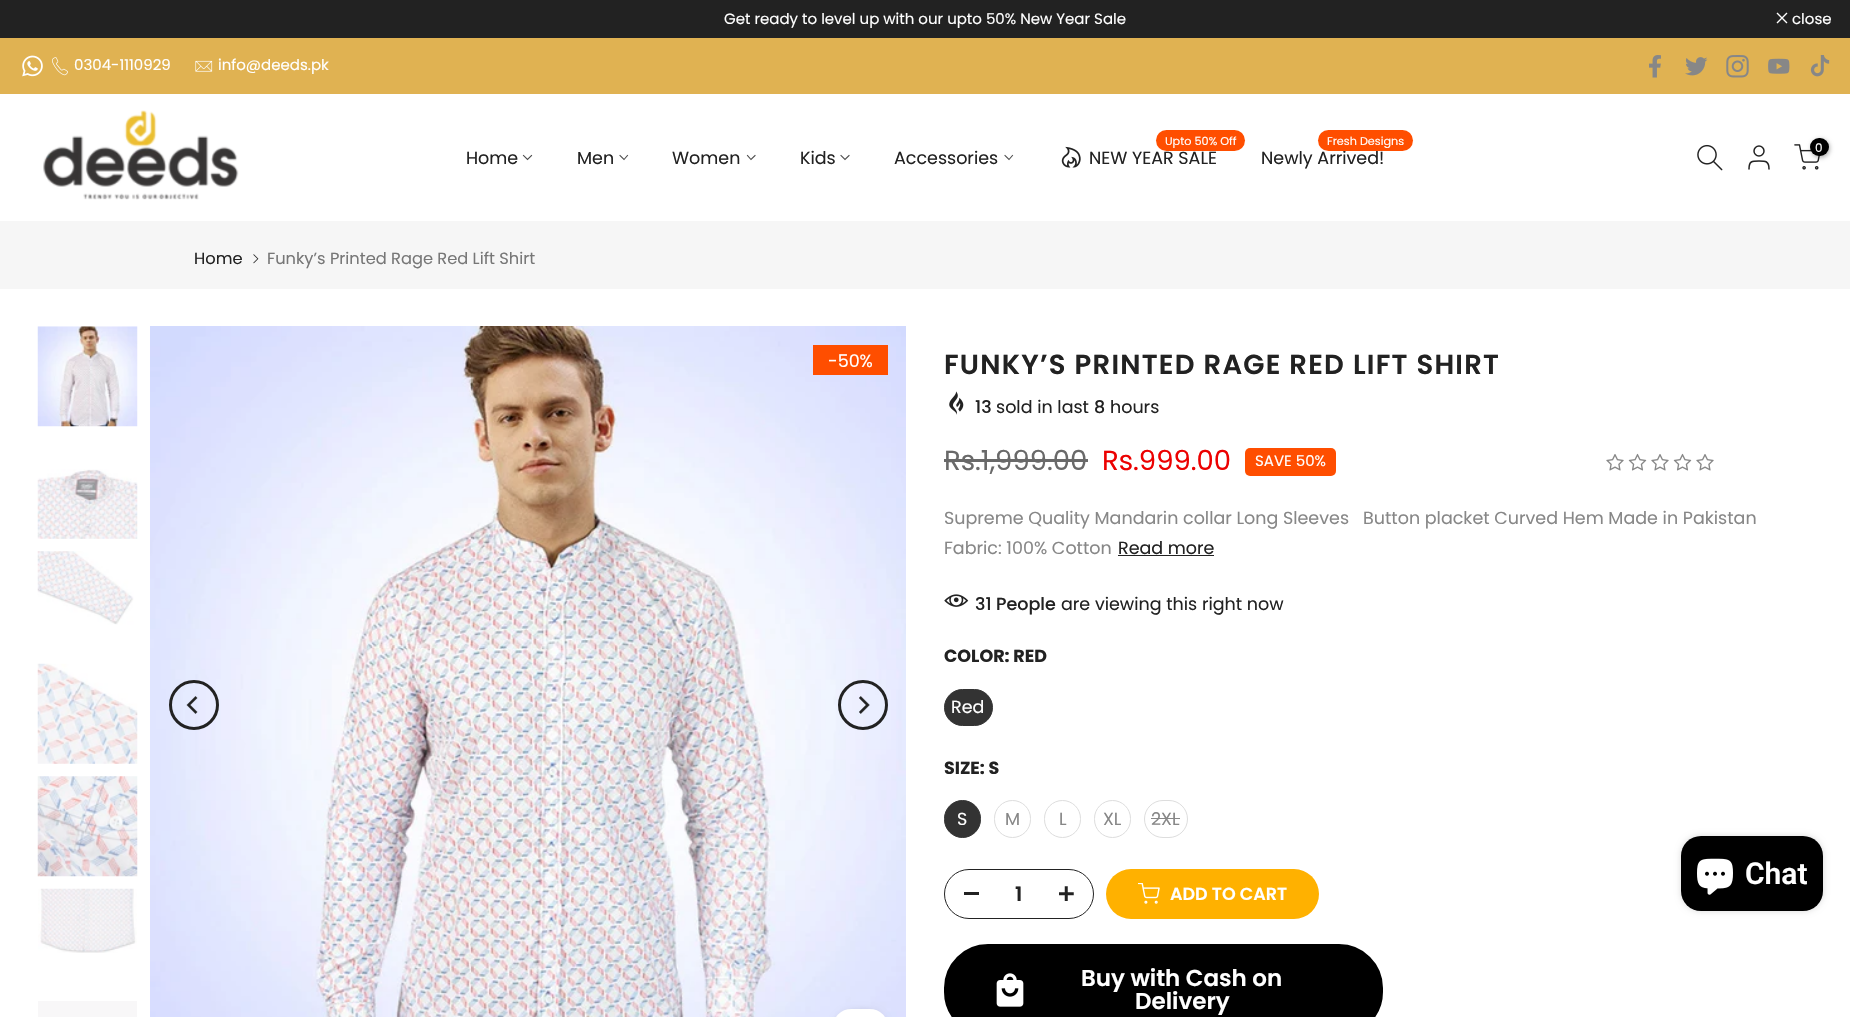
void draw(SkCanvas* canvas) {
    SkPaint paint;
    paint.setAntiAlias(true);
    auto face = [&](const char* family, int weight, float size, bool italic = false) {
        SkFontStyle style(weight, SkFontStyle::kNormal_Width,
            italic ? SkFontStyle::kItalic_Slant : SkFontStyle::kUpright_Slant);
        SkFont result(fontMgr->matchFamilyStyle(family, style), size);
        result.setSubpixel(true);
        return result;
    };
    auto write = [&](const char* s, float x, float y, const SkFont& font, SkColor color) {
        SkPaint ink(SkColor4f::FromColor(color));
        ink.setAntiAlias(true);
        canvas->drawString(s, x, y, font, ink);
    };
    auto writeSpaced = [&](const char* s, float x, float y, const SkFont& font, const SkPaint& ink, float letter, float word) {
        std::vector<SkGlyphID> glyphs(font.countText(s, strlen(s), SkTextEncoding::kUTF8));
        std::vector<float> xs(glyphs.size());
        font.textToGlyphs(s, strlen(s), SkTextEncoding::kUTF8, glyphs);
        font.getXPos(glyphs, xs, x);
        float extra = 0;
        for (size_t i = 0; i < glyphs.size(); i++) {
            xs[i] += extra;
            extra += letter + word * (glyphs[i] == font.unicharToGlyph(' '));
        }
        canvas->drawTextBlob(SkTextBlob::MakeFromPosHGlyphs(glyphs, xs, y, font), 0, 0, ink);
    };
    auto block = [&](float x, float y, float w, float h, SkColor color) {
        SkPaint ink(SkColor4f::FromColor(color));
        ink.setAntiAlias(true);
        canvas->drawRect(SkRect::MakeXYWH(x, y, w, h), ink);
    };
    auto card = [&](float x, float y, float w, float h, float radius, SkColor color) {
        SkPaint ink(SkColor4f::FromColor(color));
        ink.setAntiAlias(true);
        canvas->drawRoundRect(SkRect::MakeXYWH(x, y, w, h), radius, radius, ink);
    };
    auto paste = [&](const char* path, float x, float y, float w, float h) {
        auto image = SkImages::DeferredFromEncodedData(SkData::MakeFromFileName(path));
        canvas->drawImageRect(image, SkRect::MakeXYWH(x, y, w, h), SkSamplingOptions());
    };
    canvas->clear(SK_ColorWHITE);
    block(0, 0, 1850, 38, SkColorSetRGB(34, 34, 34));
    auto kFont1 = face("Poppins", 400, 15);
    write("Get ready to level up with our upto 50% New Year Sale", 724, 24, kFont1, SK_ColorWHITE);
    paint.setStyle(SkPaint::kStroke_Style);
    paint.setStrokeWidth(1.4f);
    paint.setColor(SK_ColorWHITE);
    canvas->drawPath(SkPathBuilder().moveTo(1787, 13).lineTo(1777, 23).moveTo(1787, 23).lineTo(1777, 13).detach(), paint);
    write("close", 1792, 24, kFont1, SK_ColorWHITE);
    block(0, 38, 1850, 56, SkColorSetRGB(224, 178, 82));
    paste("pic1.png", 22, 55, 21, 22);
    paste("pic2.png", 52, 57, 16, 19);
    write("0304-1110929", 74, 70, kFont1, SK_ColorWHITE);
    paste("pic3.png", 195, 60, 18, 12);
    write("info@deeds.pk", 218, 70, kFont1, SK_ColorWHITE);
    paste("pic4.png", 1649, 55, 12, 23);
    paste("pic5.png", 1685, 57, 23, 19);
    paste("pic6.png", 1726, 55, 23, 23);
    paste("pic7.png", 1768, 58, 22, 16);
    paste("pic8.png", 1810, 55, 20, 22);
    paste("pic9.png", 43, 110, 196, 90);
    auto kFont2 = face("Poppins", 400, 17.5f);
    write("Home", 466, 164, kFont2, SkColorSetRGB(34, 34, 34));
    paint.setStrokeWidth(1.1f);
    paint.setStrokeCap(SkPaint::kSquare_Cap);
    paint.setColor(SkColorSetRGB(78, 78, 78));
    canvas->drawPath(SkPathBuilder().moveTo(531.5f, 155.5f).lineTo(527.5f, 159.5f).lineTo(523.5f, 155.5f).detach(), paint);
    write("Men", 577, 164, kFont2, SkColorSetRGB(34, 34, 34));
    canvas->drawPath(SkPathBuilder().moveTo(627.5f, 155.5f).lineTo(624, 159.5f).lineTo(620, 155.5f).detach(), paint);
    write("Women", 672, 164, kFont2, SkColorSetRGB(34, 34, 34));
    canvas->drawPath(SkPathBuilder().moveTo(755, 155.5f).lineTo(751, 159.5f).lineTo(747.5f, 155.5f).detach(), paint);
    write("Kids", 800, 164, kFont2, SkColorSetRGB(34, 34, 34));
    canvas->drawPath(SkPathBuilder().moveTo(849, 155.5f).lineTo(845, 159.5f).lineTo(841, 155.5f).detach(), paint);
    write("Accessories", 894, 164, kFont2, SkColorSetRGB(34, 34, 34));
    canvas->drawPath(SkPathBuilder().moveTo(1012.5f, 155.5f).lineTo(1009, 159.5f).lineTo(1005, 155.5f).detach(), paint);
    card(1156, 130, 89, 21, 10.5f, SkColorSetRGB(255, 78, 0));
    auto kFont3 = face("Poppins", 400, 11.25f);
    write("Upto 50% Off", 1165, 145, kFont3, SK_ColorWHITE);
    paste("pic10.png", 1061, 146, 20, 22);
    write("NEW YEAR SALE", 1089, 164, kFont2, SkColorSetRGB(34, 34, 34));
    write("Newly Arrived!", 1261, 164, kFont2, SkColorSetRGB(34, 34, 34));
    card(1318, 130, 95, 21, 10.5f, SkColorSetRGB(255, 78, 0));
    write("Fresh Designs", 1327, 145, kFont3, SK_ColorWHITE);
    paste("pic11.png", 1697, 144, 26, 27);
    paint.setStrokeWidth(1.5f);
    paint.setStrokeCap(SkPaint::kButt_Cap);
    paint.setColor(SkColorSetRGB(34, 34, 34));
    canvas->drawCircle(1759, 151, 5, paint);
    paint.setStrokeCap(SkPaint::kRound_Cap);
    paint.setStrokeJoin(SkPaint::kRound_Join);
    canvas->drawPath(SkPathBuilder().moveTo(1769, 169).cubicTo(1769, 161, 1765.5f, 161, 1759, 161).cubicTo(1752, 161, 1749, 161, 1749, 169).detach(), paint);
    paste("pic12.png", 1794, 144, 26, 26);
    paint.setStyle(SkPaint::kFill_Style);
    paint.setColor(SkColorSetARGB(77, 0, 0, 0));
    paint.setMaskFilter(SkMaskFilter::MakeBlur(kNormal_SkBlurStyle, 2));
    canvas->drawRoundRect(SkRect::MakeXYWH(1811, 139, 19, 19), 9.5f, 9.5f, paint);
    paint.setMaskFilter(nullptr);
    card(1810, 138, 19, 18, 9, SK_ColorBLACK);
    auto kFont4 = face("Poppins", 400, 12);
    write("0", 1815, 152, kFont4, SK_ColorWHITE);
    block(0, 221, 1850, 68, SkColorSetRGB(246, 246, 246));
    auto kFont5 = face("Poppins", 400, 16.25f);
    write("Home", 194, 264, kFont5, SkColorSetRGB(34, 34, 34));
    paste("pic13.png", 253, 254, 6, 10);
    write("Funky’s Printed Rage Red Lift Shirt", 267, 264, kFont5, SkColorSetRGB(119, 119, 119));
    paste("pic14.png", 37, 326, 101, 101);
    paste("pic15.png", 37, 469, 101, 70);
    paste("pic16.png", 37, 551, 97, 74);
    paste("pic17.png", 37, 663, 101, 101);
    paste("pic18.png", 37, 776, 101, 101);
    paste("pic19.png", 38, 888, 99, 65);
    block(38, 1001, 99, 16, SkColorSetRGB(248, 247, 248));
    paste("pic20.png", 150, 326, 756, 691);
    paint.setStyle(SkPaint::kStroke_Style);
    paint.setStrokeWidth(3);
    paint.setStrokeCap(SkPaint::kButt_Cap);
    paint.setStrokeJoin(SkPaint::kMiter_Join);
    paint.setColor(SkColorSetRGB(34, 34, 34));
    canvas->drawCircle(194, 705, 23.5f, paint);
    paste("pic21.png", 186, 696, 12, 18);
    canvas->drawCircle(863, 705, 23.5f, paint);
    paste("pic22.png", 859, 696, 11, 18);
    block(813, 345, 75, 30, SkColorSetRGB(255, 78, 0));
    write("-50%", 828, 367, kFont2, SK_ColorWHITE);
    paint.setStyle(SkPaint::kFill_Style);
    paint.setColor(SkColorSetARGB(23, 0, 0, 0));
    paint.setMaskFilter(SkMaskFilter::MakeBlur(kNormal_SkBlurStyle, 3));
    canvas->drawRoundRect(SkRect::MakeXYWH(833, 1009, 55, 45), 27.5f, 27.5f, paint);
    paint.setMaskFilter(nullptr);
    card(833, 1009, 55, 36, 27.5f, SK_ColorWHITE);
    auto kFont6 = face("Poppins", 600, 27.5f);
    paint.setColor(SkColorSetRGB(34, 34, 34));
    writeSpaced("FUNKY’S PRINTED RAGE RED LIFT SHIRT", 944, 374, kFont6, paint, 1.25f, 0);
    paste("pic23.png", 949, 391, 15, 24);
    auto kFont7 = face("Poppins", 500, 17.5f);
    write("13", 975, 413, kFont7, SkColorSetRGB(34, 34, 34));
    write("sold in last", 996, 413, kFont2, SkColorSetRGB(34, 34, 34));
    write("8", 1094, 413, kFont7, SkColorSetRGB(34, 34, 34));
    write("hours", 1110, 413, kFont2, SkColorSetRGB(34, 34, 34));
    auto kFont8 = face("Poppins", 400, 27.5f);
    write("Rs.1,999.00", 944, 470, kFont8, SkColorSetRGB(105, 105, 105));
    block(944, 459, 144, 3, SkColorSetRGB(105, 105, 105));
    write("Rs.999.00", 1102, 470, kFont8, SkColorSetRGB(236, 1, 1));
    card(1245, 448, 91, 28, 5, SkColorSetRGB(255, 78, 0));
    write("SAVE 50%", 1255, 466, kFont1, SK_ColorWHITE);
    paste("pic24.png", 1606, 454, 18, 17);
    paste("pic25.png", 1628, 453, 19, 18);
    paste("pic24.png", 1651, 454, 18, 17);
    paste("pic25.png", 1673, 453, 19, 18);
    paste("pic24.png", 1696, 454, 18, 17);
    write("Supreme Quality Mandarin collar Long Sleeves   Button placket Curved Hem Made in Pakistan", 944, 524, kFont2, SkColorSetRGB(135, 135, 135));
    write("Fabric: 100% Cotton", 944, 554, kFont2, SkColorSetRGB(135, 135, 135));
    write("Read more", 1118, 554, kFont2, SkColorSetRGB(34, 34, 34));
    block(1118, 555, 96, 1, SkColorSetRGB(34, 34, 34));
    paste("pic26.png", 944, 594, 25, 13);
    write("31 People", 975, 610, kFont7, SkColorSetRGB(34, 34, 34));
    write("are viewing this right now", 1061, 610, kFont2, SkColorSetRGB(34, 34, 34));
    auto kFont9 = face("Poppins", 700, 17.5f);
    write("COLOR: RED", 944, 662, kFont9, SkColorSetRGB(34, 34, 34));
    paint.setColor(SkColorSetRGB(51, 51, 51));
    canvas->drawRoundRect(SkRect::MakeXYWH(944.5f, 689.5f, 48, 36), 18, 18, paint);
    paint.setStyle(SkPaint::kStroke_Style);
    paint.setStrokeWidth(1);
    canvas->drawRoundRect(SkRect::MakeXYWH(944.5f, 689.5f, 48, 36), 18, 18, paint);
    write("Red", 951, 713, kFont2, SK_ColorWHITE);
    write("SIZE: S", 944, 774, kFont9, SkColorSetRGB(34, 34, 34));
    paint.setStyle(SkPaint::kFill_Style);
    canvas->drawRoundRect(SkRect::MakeXYWH(944.5f, 800.5f, 36, 37), 18, 18, paint);
    paint.setStyle(SkPaint::kStroke_Style);
    canvas->drawRoundRect(SkRect::MakeXYWH(944.5f, 800.5f, 36, 37), 18, 18, paint);
    write("S", 957, 825, kFont2, SK_ColorWHITE);
    paint.setColor(SkColorSetRGB(221, 221, 221));
    canvas->drawRoundRect(SkRect::MakeXYWH(994.5f, 800.5f, 36, 37), 18, 18, paint);
    write("M", 1005, 825, kFont2, SkColorSetRGB(135, 135, 135));
    canvas->drawRoundRect(SkRect::MakeXYWH(1044.5f, 800.5f, 36, 37), 18, 18, paint);
    write("L", 1059, 825, kFont2, SkColorSetRGB(135, 135, 135));
    canvas->drawRoundRect(SkRect::MakeXYWH(1094.5f, 800.5f, 36, 37), 18, 18, paint);
    write("XL", 1103, 825, kFont2, SkColorSetRGB(135, 135, 135));
    canvas->drawRoundRect(SkRect::MakeXYWH(1144.5f, 800.5f, 43, 37), 18.5f, 18.5f, paint);
    write("2XL", 1151, 825, kFont2, SkColorSetRGB(135, 135, 135));
    block(1151, 818, 29, 1, SkColorSetRGB(135, 135, 135));
    paint.setColor(SkColorSetRGB(34, 34, 34));
    canvas->drawRoundRect(SkRect::MakeXYWH(944.5f, 869.5f, 149, 49), 24.5f, 24.5f, paint);
    block(964, 892, 15, 3, SkColorSetRGB(34, 34, 34));
    auto kFont10 = face("Poppins", 600, 20);
    write("1", 1015, 901, kFont10, SkColorSetRGB(34, 34, 34));
    paste("pic27.png", 1059, 886, 15, 15);
    card(1106, 869, 213, 50, 25, SkColorSetRGB(255, 177, 0));
    paste("pic28.png", 1138, 883, 22, 21);
    auto kFont11 = face("Poppins", 600, 17.5f);
    write("ADD TO CART", 1170, 900, kFont11, SK_ColorWHITE);
    paint.setStyle(SkPaint::kFill_Style);
    paint.setColor(SK_ColorBLACK);
    canvas->drawRoundRect(SkRect::MakeXYWH(948.5f, 948.5f, 430, 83), 39.5f, 39.5f, paint);
    paint.setStyle(SkPaint::kStroke_Style);
    paint.setStrokeWidth(9);
    canvas->drawRoundRect(SkRect::MakeXYWH(948.5f, 948.5f, 430, 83), 39.5f, 39.5f, paint);
    paste("pic29.png", 996, 973, 28, 34);
    auto kFont12 = face("Poppins", 600, 23);
    write("Buy with Cash on", 1081, 986, kFont12, SK_ColorWHITE);
    write("Delivery", 1135, 1009, kFont12, SK_ColorWHITE);
    paint.setStyle(SkPaint::kFill_Style);
    paint.setColor(SkColorSetARGB(38, 0, 0, 0));
    paint.setMaskFilter(SkMaskFilter::MakeBlur(kNormal_SkBlurStyle, 3));
    canvas->drawRoundRect(SkRect::MakeXYWH(1681, 836, 142, 75), 20, 20, paint);
    paint.setMaskFilter(nullptr);
    card(1681, 836, 142, 75, 20, SK_ColorBLACK);
    paste("pic30.png", 1697, 858, 36, 37);
    auto kFont13 = face("Roboto", 600, 30);
    write("Chat", 1745, 884, kFont13, SK_ColorWHITE);
}
